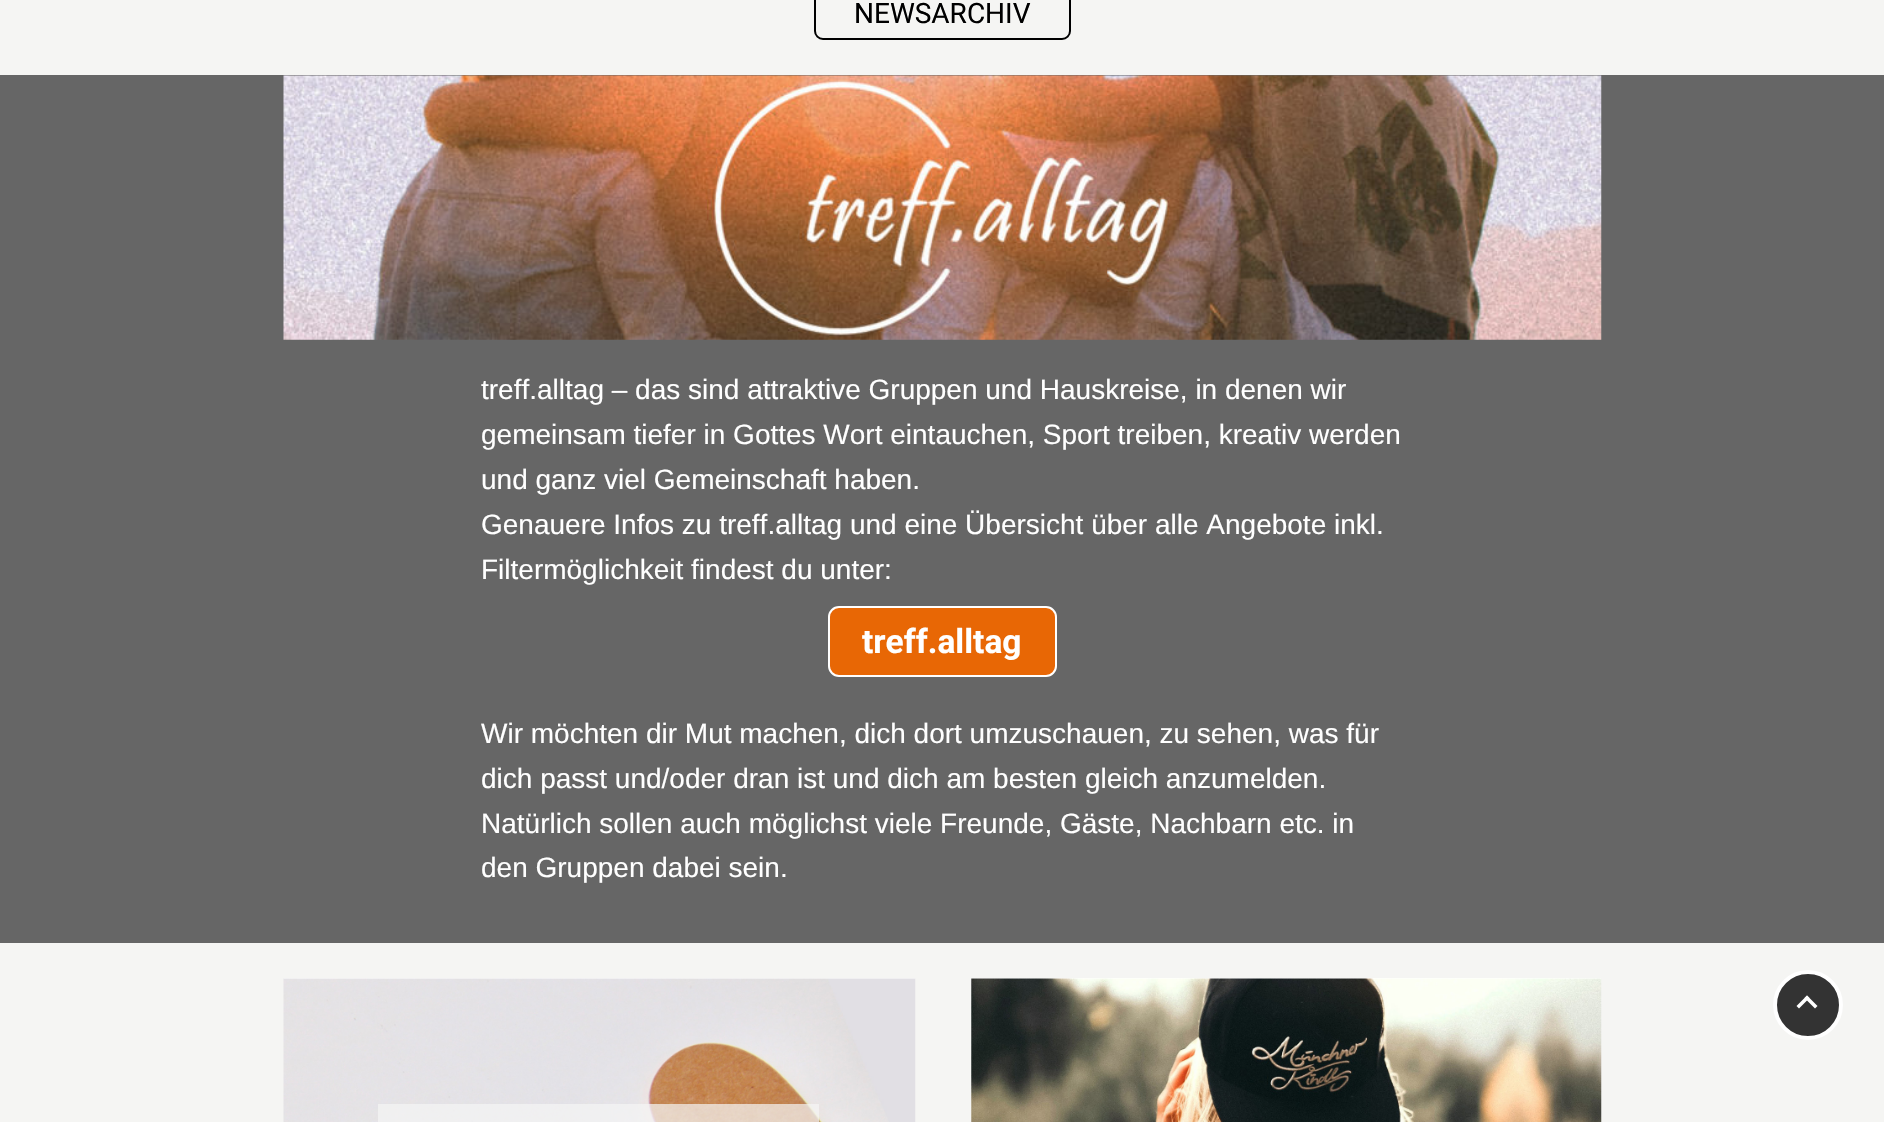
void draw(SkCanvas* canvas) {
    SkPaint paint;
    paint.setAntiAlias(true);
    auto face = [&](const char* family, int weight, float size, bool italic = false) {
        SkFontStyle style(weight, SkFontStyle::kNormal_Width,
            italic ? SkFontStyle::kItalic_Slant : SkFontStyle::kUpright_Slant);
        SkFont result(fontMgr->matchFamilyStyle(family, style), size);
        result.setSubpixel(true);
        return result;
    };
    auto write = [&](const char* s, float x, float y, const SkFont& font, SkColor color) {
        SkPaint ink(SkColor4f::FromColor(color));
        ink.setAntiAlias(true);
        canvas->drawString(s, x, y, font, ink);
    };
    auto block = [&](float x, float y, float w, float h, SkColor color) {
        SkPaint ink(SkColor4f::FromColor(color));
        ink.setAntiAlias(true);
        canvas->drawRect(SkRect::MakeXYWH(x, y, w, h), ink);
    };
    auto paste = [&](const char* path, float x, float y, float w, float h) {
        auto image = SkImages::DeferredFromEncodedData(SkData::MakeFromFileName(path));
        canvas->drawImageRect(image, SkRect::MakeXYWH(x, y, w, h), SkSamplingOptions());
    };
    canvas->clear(SkColorSetRGB(245, 245, 243));
    paint.setStyle(SkPaint::kStroke_Style);
    paint.setStrokeWidth(2);
    paint.setColor(SK_ColorBLACK);
    canvas->drawRoundRect(SkRect::MakeXYWH(815, -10, 255, 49), 8, 8, paint);
    auto kFont1 = face("Roboto", 400, 28);
    write("NEWSARCHIV", 854, 23, kFont1, SK_ColorBLACK);
    block(0, 75, 1884, 868, SkColorSetRGB(102, 102, 102));
    paste("pic1.png", 283, 75, 1319, 265);
    auto kFont2 = face("Liberation Sans", 400, 28);
    write("treff.alltag – das sind attraktive Gruppen und Hauskreise, in denen wir", 481, 399, kFont2, SK_ColorWHITE);
    write("gemeinsam tiefer in Gottes Wort eintauchen, Sport treiben, kreativ werden", 481, 444, kFont2, SK_ColorWHITE);
    write("und ganz viel Gemeinschaft haben.", 481, 489, kFont2, SK_ColorWHITE);
    write("Genauere Infos zu treff.alltag und eine Übersicht über alle Angebote inkl.", 481, 534, kFont2, SK_ColorWHITE);
    write("Filtermöglichkeit findest du unter:", 481, 579, kFont2, SK_ColorWHITE);
    paint.setStyle(SkPaint::kFill_Style);
    paint.setColor(SkColorSetRGB(232, 103, 5));
    canvas->drawRoundRect(SkRect::MakeXYWH(829, 607, 227, 69), 10, 10, paint);
    paint.setStyle(SkPaint::kStroke_Style);
    paint.setColor(SK_ColorWHITE);
    canvas->drawRoundRect(SkRect::MakeXYWH(829, 607, 227, 69), 10, 10, paint);
    auto kFont3 = face("Roboto", 700, 33.5f);
    write("treff.alltag", 862, 653, kFont3, SK_ColorWHITE);
    write("Wir möchten dir Mut machen, dich dort umzuschauen, zu sehen, was für", 481, 743, kFont2, SK_ColorWHITE);
    write("dich passt und/oder dran ist und dich am besten gleich anzumelden.", 481, 788, kFont2, SK_ColorWHITE);
    write("Natürlich sollen auch möglichst viele Freunde, Gäste, Nachbarn etc. in", 481, 833, kFont2, SK_ColorWHITE);
    write("den Gruppen dabei sein.", 481, 877, kFont2, SK_ColorWHITE);
    block(284, 978, 631, 1, SK_ColorWHITE);
    paste("pic2.png", 283, 978, 633, 144);
    block(378, 1104, 441, 18, SkColorSetARGB(179, 245, 245, 245));
    block(971, 978, 630, 144, SK_ColorWHITE);
    paste("pic3.png", 971, 978, 631, 144);
    paint.setStyle(SkPaint::kFill_Style);
    paint.setColor(SkColorSetRGB(51, 51, 51));
    canvas->drawCircle(1808, 1005, 33, paint);
    paint.setStyle(SkPaint::kStroke_Style);
    paint.setStrokeWidth(4);
    paint.setColor(SK_ColorWHITE);
    canvas->drawCircle(1808, 1005, 33, paint);
    paint.setStyle(SkPaint::kFill_Style);
    canvas->drawPath(SkPathBuilder().moveTo(1796.5f, 1006).lineTo(1807, 995.5f).lineTo(1809.5f, 998).lineTo(1799, 1008.5f).close().detach(), paint);
    canvas->drawPath(SkPathBuilder().moveTo(1804.5f, 998).lineTo(1807, 995.5f).lineTo(1817.5f, 1006).lineTo(1815, 1008.5f).close().detach(), paint);
}
